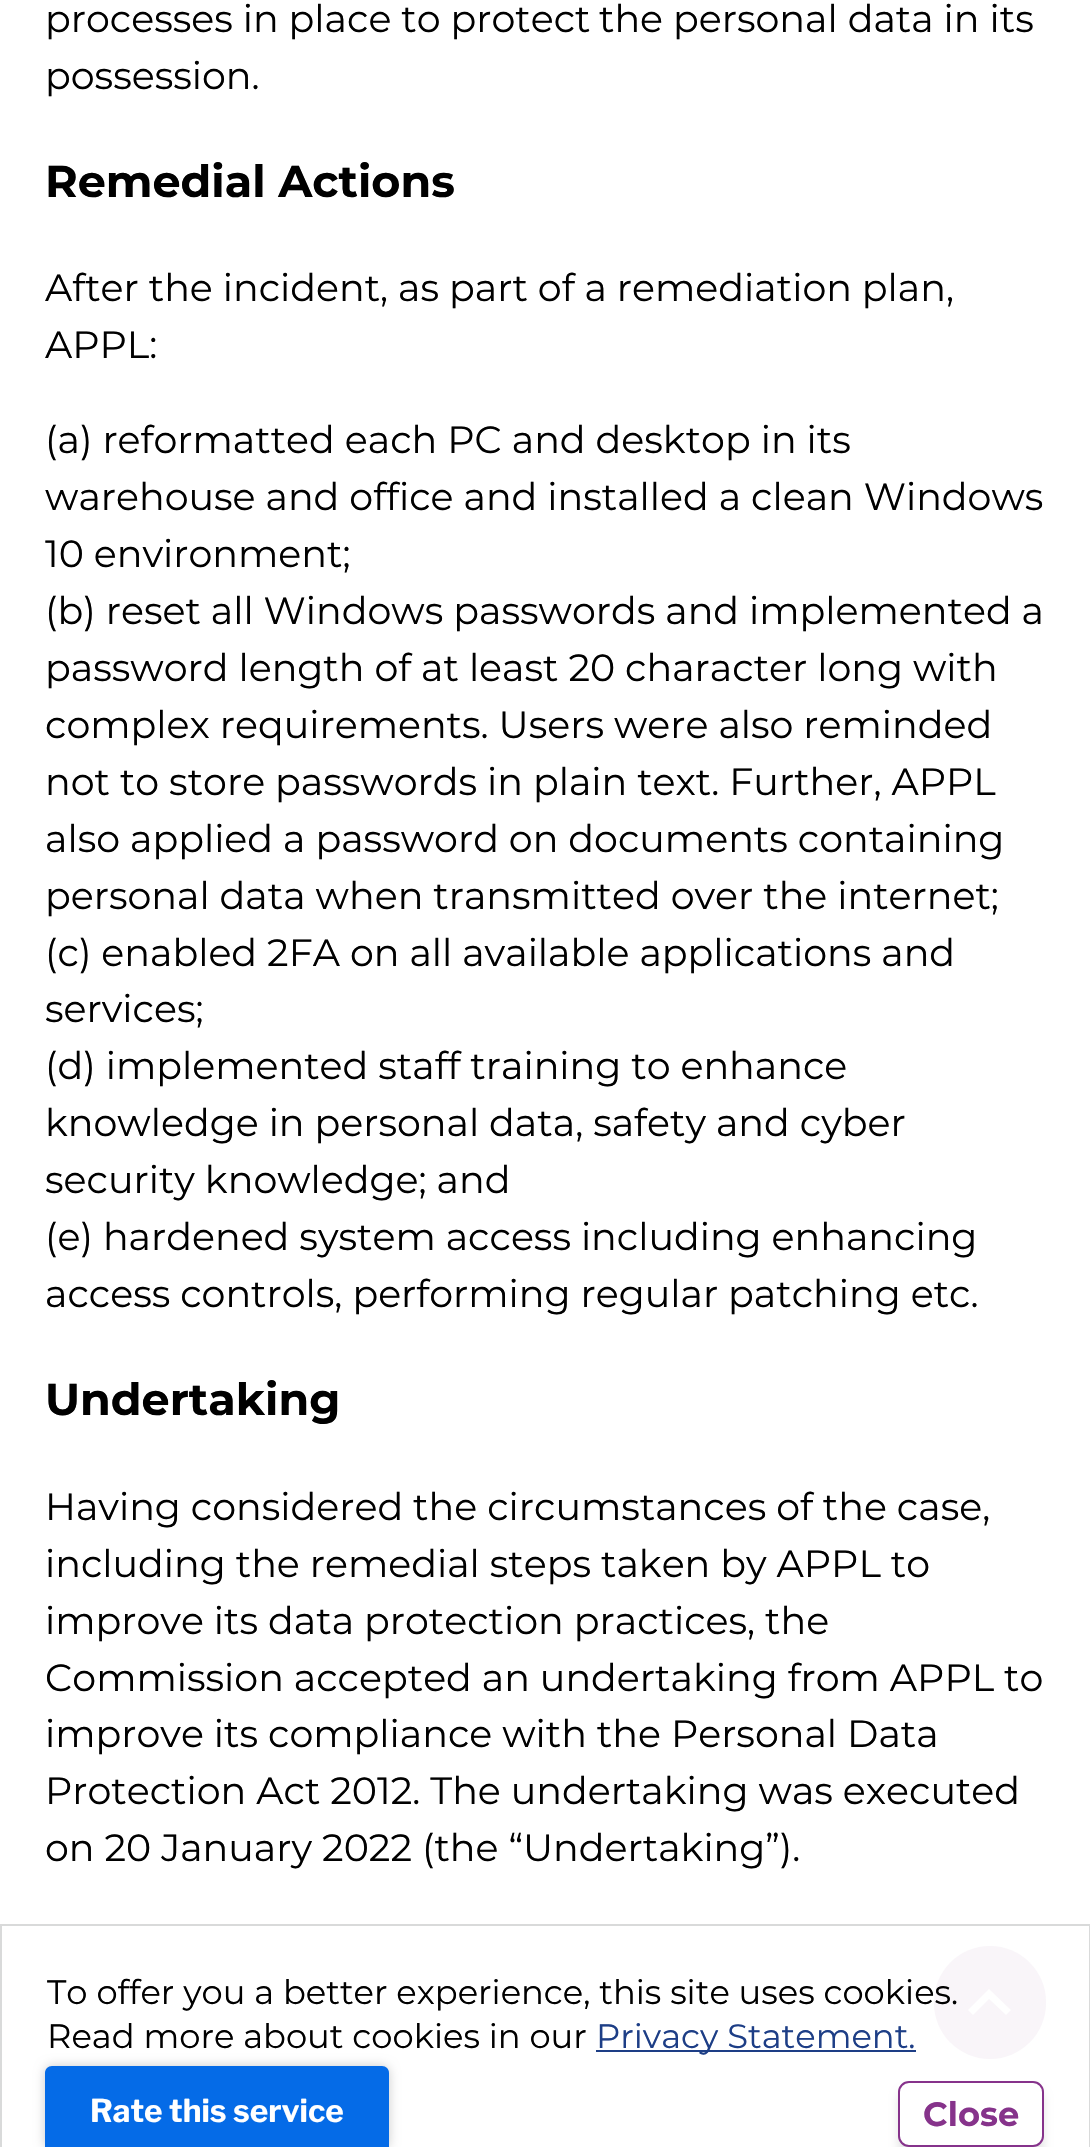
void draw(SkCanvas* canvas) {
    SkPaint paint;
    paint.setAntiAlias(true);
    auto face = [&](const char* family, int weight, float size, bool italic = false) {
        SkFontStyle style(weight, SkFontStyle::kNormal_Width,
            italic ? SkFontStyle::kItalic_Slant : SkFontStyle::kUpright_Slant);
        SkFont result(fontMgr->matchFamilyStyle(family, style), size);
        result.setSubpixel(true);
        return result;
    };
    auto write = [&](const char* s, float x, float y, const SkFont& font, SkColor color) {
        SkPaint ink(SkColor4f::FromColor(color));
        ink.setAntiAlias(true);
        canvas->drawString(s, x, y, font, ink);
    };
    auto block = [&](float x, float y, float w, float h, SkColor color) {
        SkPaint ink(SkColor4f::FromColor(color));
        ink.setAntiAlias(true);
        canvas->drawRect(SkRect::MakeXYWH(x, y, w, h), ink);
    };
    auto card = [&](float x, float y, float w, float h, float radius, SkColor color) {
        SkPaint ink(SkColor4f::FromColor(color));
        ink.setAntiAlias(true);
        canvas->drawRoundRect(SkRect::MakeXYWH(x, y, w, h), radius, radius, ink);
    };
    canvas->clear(SK_ColorWHITE);
    auto kFont1 = face("Montserrat", 400, 38);
    write("processes in place to protect", 45, 32, kFont1, SK_ColorBLACK);
    write("the personal data in its", 599, 32, kFont1, SK_ColorBLACK);
    write("possession.", 45, 89, kFont1, SK_ColorBLACK);
    auto kFont2 = face("Montserrat", 700, 44.5f);
    write("Remedial Actions", 45, 197, kFont2, SK_ColorBLACK);
    write("After the incident, as part of a remediation plan,", 45, 301, kFont1, SK_ColorBLACK);
    write("APPL:", 45, 358, kFont1, SK_ColorBLACK);
    write("(a) reformatted each PC and desktop in its", 45, 453, kFont1, SK_ColorBLACK);
    write("warehouse and office and installed a clean Windows", 45, 510, kFont1, SK_ColorBLACK);
    write("10 environment;", 45, 567, kFont1, SK_ColorBLACK);
    write("(b) reset all Windows passwords and implemented a", 45, 624, kFont1, SK_ColorBLACK);
    write("password length of at least 20 character long with", 45, 681, kFont1, SK_ColorBLACK);
    write("complex requirements. Users were also reminded", 45, 738, kFont1, SK_ColorBLACK);
    write("not to store passwords in plain text. Further, APPL", 45, 795, kFont1, SK_ColorBLACK);
    write("also applied a password on documents containing", 45, 852, kFont1, SK_ColorBLACK);
    write("personal data when transmitted over the internet;", 45, 909, kFont1, SK_ColorBLACK);
    write("(c) enabled 2FA on all available applications and", 45, 966, kFont1, SK_ColorBLACK);
    write("services;", 45, 1022, kFont1, SK_ColorBLACK);
    write("(d) implemented staff training to enhance", 45, 1079, kFont1, SK_ColorBLACK);
    write("knowledge in personal data, safety and cyber", 45, 1136, kFont1, SK_ColorBLACK);
    write("security knowledge; and", 45, 1193, kFont1, SK_ColorBLACK);
    write("(e) hardened system access including enhancing", 45, 1250, kFont1, SK_ColorBLACK);
    write("access controls, performing regular patching etc.", 45, 1307, kFont1, SK_ColorBLACK);
    write("Undertaking", 45, 1415, kFont2, SK_ColorBLACK);
    write("Having considered the circumstances of the case,", 45, 1520, kFont1, SK_ColorBLACK);
    write("including the remedial steps taken by APPL to", 45, 1577, kFont1, SK_ColorBLACK);
    write("improve its data protection practices, the", 45, 1634, kFont1, SK_ColorBLACK);
    write("Commission accepted an undertaking from APPL to", 45, 1691, kFont1, SK_ColorBLACK);
    write("improve its compliance with the Personal Data", 45, 1747, kFont1, SK_ColorBLACK);
    write("Protection Act 2012. The undertaking was executed", 45, 1804, kFont1, SK_ColorBLACK);
    write("on 20 January 2022 (the “Undertaking”).", 45, 1861, kFont1, SK_ColorBLACK);
    card(934, 1946, 112, 113, 56, SkColorSetRGB(249, 245, 249));
    paint.setColor(SK_ColorWHITE);
    canvas->drawPath(SkPathBuilder().moveTo(973, 2015).lineTo(968, 2010).lineTo(989, 1989).lineTo(1011, 2010).lineTo(1006, 2015).lineTo(989, 1999).close().detach(), paint);
    paint.setStyle(SkPaint::kStroke_Style);
    paint.setStrokeWidth(2);
    paint.setColor(SkColorSetRGB(217, 218, 218));
    canvas->drawRect(SkRect::MakeXYWH(1, 1925, 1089, 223), paint);
    auto kFont3 = face("Montserrat", 400, 33.75f);
    write("To offer you a better experience, this site uses cookies.", 47, 2004, kFont3, SK_ColorBLACK);
    write("Read more about cookies in our", 47, 2048, kFont3, SK_ColorBLACK);
    block(596, 2050, 320, 2, SkColorSetRGB(29, 62, 134));
    write("Privacy Statement.", 596, 2048, kFont3, SkColorSetRGB(29, 62, 134));
    paint.setStyle(SkPaint::kFill_Style);
    paint.setColor(SkColorSetARGB(26, 0, 0, 0));
    paint.setMaskFilter(SkMaskFilter::MakeBlur(kNormal_SkBlurStyle, 4.5f));
    canvas->drawRoundRect(SkRect::MakeXYWH(898, 2090, 146, 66), 11, 11, paint);
    paint.setMaskFilter(nullptr);
    paint.setColor(SK_ColorWHITE);
    canvas->drawRoundRect(SkRect::MakeXYWH(899, 2082, 144, 64), 10, 10, paint);
    paint.setStyle(SkPaint::kStroke_Style);
    paint.setColor(SkColorSetRGB(134, 51, 139));
    canvas->drawRoundRect(SkRect::MakeXYWH(899, 2082, 144, 64), 10, 10, paint);
    auto kFont4 = face("Montserrat", 700, 33.75f);
    write("Close", 923, 2126, kFont4, SkColorSetRGB(134, 51, 139));
    paint.setStyle(SkPaint::kFill_Style);
    paint.setColor(SkColorSetARGB(51, 0, 0, 0));
    paint.setMaskFilter(SkMaskFilter::MakeBlur(kNormal_SkBlurStyle, 5.5f));
    canvas->drawRoundRect(SkRect::MakeXYWH(45, 2066, 344, 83), 7, 7, paint);
    paint.setMaskFilter(nullptr);
    paint.setColor(SkColorSetRGB(5, 107, 231));
    canvas->drawPath(SkPathBuilder().moveTo(52, 2066).lineTo(382, 2066).cubicTo(386, 2066, 389, 2069, 389, 2073).lineTo(389, 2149).lineTo(45, 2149).lineTo(45, 2073).cubicTo(45, 2069, 48, 2066, 52, 2066).close().detach(), paint);
    auto kFont5 = face("Libre Franklin", 700, 31.5f);
    write("Rate this service", 90, 2122, kFont5, SK_ColorWHITE);
}
